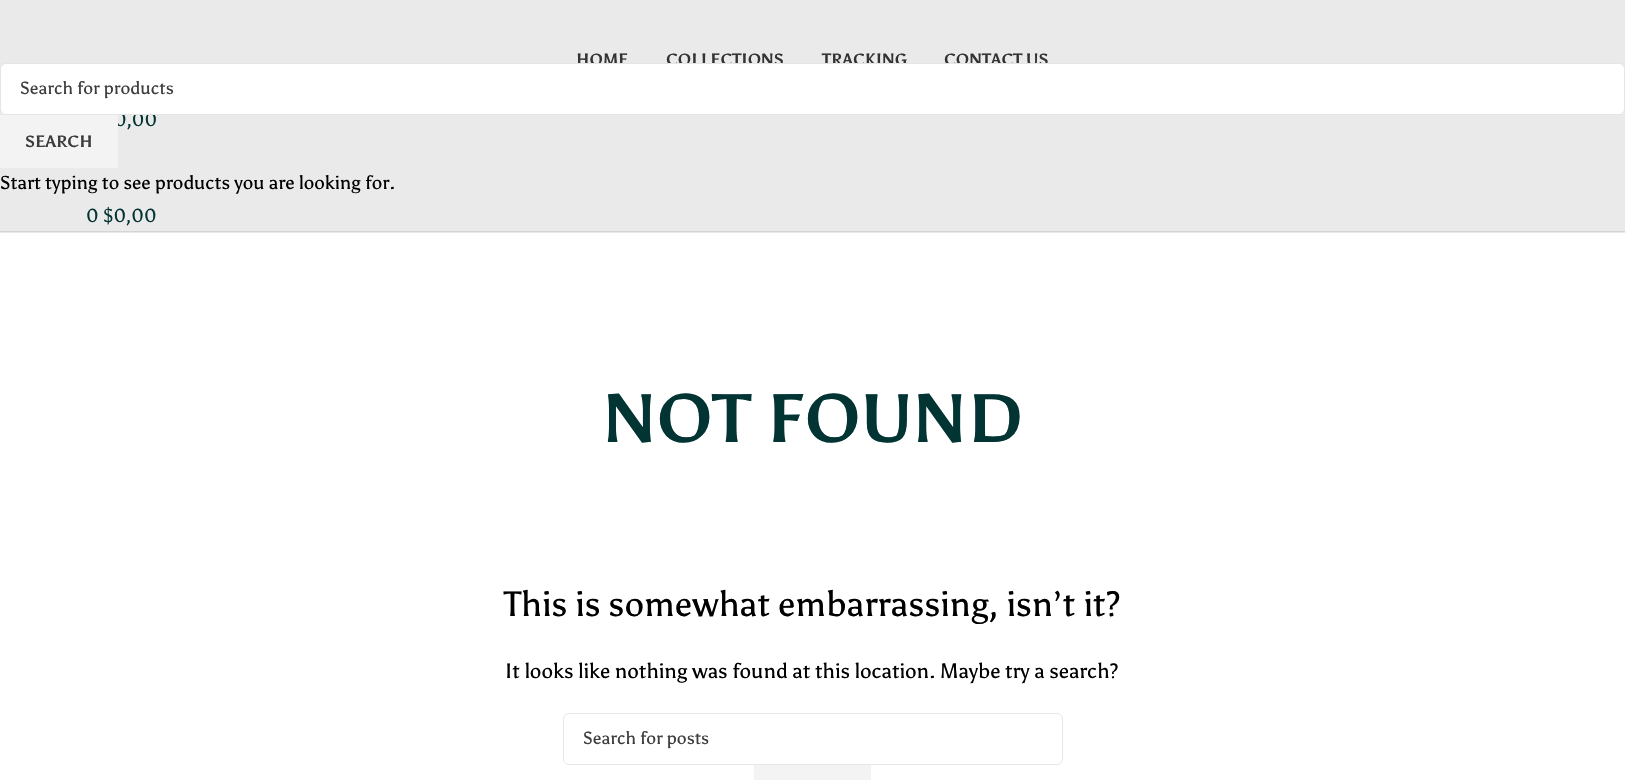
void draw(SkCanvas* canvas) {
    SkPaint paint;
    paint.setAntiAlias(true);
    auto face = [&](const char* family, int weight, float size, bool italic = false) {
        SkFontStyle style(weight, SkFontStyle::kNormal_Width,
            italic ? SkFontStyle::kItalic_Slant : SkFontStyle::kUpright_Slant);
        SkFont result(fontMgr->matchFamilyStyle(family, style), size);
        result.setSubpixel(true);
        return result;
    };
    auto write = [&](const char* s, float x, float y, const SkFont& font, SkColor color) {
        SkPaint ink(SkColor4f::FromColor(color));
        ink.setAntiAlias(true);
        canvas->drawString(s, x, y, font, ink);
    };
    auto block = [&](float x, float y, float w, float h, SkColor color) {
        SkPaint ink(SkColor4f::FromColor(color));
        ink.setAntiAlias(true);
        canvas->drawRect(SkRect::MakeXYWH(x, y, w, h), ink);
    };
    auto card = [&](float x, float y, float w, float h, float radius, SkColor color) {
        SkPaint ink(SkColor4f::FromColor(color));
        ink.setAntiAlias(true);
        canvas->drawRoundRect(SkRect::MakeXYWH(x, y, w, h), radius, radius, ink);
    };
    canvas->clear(SK_ColorWHITE);
    block(0, 0, 1625, 233, SkColorSetRGB(234, 234, 234));
    block(0, 231, 1625, 1, SkColorSetRGB(213, 213, 213));
    auto kFont1 = face("Asul", 700, 16.25f);
    write("HOME", 576, 65, kFont1, SkColorSetRGB(51, 51, 51));
    write("COLLECTIONS", 666, 65, kFont1, SkColorSetRGB(51, 51, 51));
    write("TRACKING", 822, 65, kFont1, SkColorSetRGB(51, 51, 51));
    write("CONTACT US", 944, 65, kFont1, SkColorSetRGB(51, 51, 51));
    auto kFont2 = face("Asul", 400, 18.75f);
    write("0,00", 114, 126, kFont2, SkColorSetRGB(3, 52, 52));
    write("0 $0,00", 86, 222, kFont2, SkColorSetRGB(3, 52, 52));
    auto kFont3 = face("Asul", 700, 68.25f);
    write("NOT FOUND", 603, 442, kFont3, SkColorSetRGB(3, 52, 52));
    auto kFont4 = face("Asul", 400, 35);
    write("This is somewhat embarrassing, isn’t it?", 504, 616, kFont4, SK_ColorBLACK);
    auto kFont5 = face("Asul", 400, 20.6f);
    write("It looks like nothing was found at this location. Maybe try a search?", 505, 678, kFont5, SK_ColorBLACK);
    paint.setStyle(SkPaint::kStroke_Style);
    paint.setStrokeWidth(1);
    paint.setColor(SkColorSetRGB(230, 230, 230));
    canvas->drawRoundRect(SkRect::MakeXYWH(563.5f, 713.5f, 499, 51), 5.5f, 5.5f, paint);
    auto kFont6 = face("Asul", 400, 17.5f);
    write("Search for posts", 583, 744, kFont6, SkColorSetRGB(61, 61, 61));
    block(754, 765, 117, 15, SkColorSetRGB(243, 243, 243));
    card(0, 63, 1625, 52, 6, SK_ColorWHITE);
    paint.setColor(SkColorSetARGB(26, 0, 0, 0));
    canvas->drawRoundRect(SkRect::MakeXYWH(0.5f, 63.5f, 1624, 51), 5.5f, 5.5f, paint);
    write("Search for products", 20, 94, kFont6, SkColorSetRGB(61, 61, 61));
    block(0, 115, 118, 53, SkColorSetRGB(243, 243, 243));
    write("SEARCH", 25, 147, kFont1, SkColorSetRGB(61, 61, 61));
    write("Start typing to see products you are looking for.", 0, 189, kFont2, SK_ColorBLACK);
}
